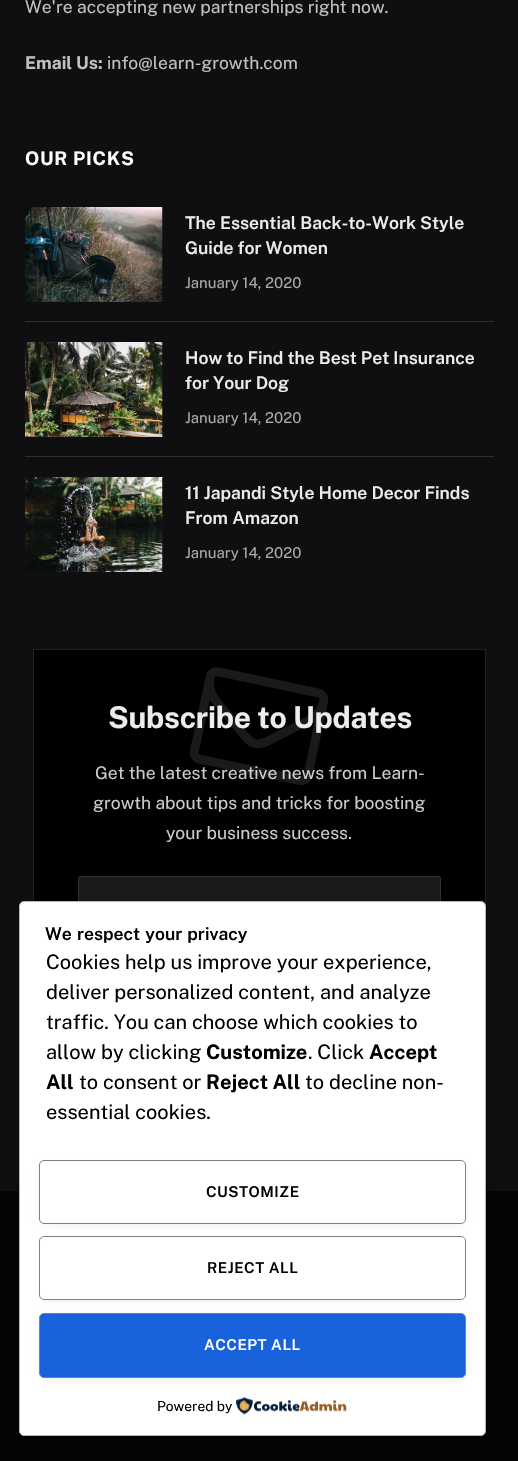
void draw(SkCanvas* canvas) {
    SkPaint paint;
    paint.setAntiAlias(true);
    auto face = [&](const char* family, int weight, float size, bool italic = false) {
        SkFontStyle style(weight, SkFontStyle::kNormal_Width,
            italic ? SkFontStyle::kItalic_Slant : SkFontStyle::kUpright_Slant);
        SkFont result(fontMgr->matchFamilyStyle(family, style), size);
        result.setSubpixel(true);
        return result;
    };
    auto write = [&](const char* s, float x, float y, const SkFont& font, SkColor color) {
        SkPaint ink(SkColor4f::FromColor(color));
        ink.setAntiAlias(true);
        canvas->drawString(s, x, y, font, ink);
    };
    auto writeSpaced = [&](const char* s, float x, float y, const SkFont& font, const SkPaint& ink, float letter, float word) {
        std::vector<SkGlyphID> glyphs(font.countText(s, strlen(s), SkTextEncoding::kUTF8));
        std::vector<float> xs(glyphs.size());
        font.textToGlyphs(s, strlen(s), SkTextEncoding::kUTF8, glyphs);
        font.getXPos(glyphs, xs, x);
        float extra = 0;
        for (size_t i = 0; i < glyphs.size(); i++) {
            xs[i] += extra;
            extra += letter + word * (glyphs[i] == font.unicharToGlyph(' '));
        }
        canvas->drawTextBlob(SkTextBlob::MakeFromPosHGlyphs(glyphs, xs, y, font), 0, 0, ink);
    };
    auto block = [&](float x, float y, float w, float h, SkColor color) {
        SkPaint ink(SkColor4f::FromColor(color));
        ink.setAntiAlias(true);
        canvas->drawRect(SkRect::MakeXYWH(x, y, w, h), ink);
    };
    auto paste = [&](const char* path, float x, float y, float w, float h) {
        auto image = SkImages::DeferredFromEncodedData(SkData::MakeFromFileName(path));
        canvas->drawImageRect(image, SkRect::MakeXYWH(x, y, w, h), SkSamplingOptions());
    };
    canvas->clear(SkColorSetRGB(15, 15, 17));
    auto kFont1 = face("Public Sans", 400, 17.5f);
    write("We're accepting new partnerships right now.", 25, 13, kFont1, SkColorSetRGB(192, 192, 192));
    auto kFont2 = face("Public Sans", 700, 17.5f);
    write("Email Us:", 25, 69, kFont2, SkColorSetRGB(192, 192, 192));
    write("info@learn-growth.com", 107, 69, kFont1, SkColorSetRGB(192, 192, 192));
    auto kFont3 = face("Public Sans", 700, 18.75f);
    paint.setColor(SK_ColorWHITE);
    writeSpaced("OUR PICKS", 25, 165, kFont3, paint, 0.75f, 0);
    paste("pic1.png", 25, 207, 138, 95);
    auto kFont4 = face("Public Sans", 600, 17.5f);
    write("The Essential Back-to-Work Style", 185, 229, kFont4, SkColorSetRGB(236, 236, 236));
    write("Guide for Women", 185, 254, kFont4, SkColorSetRGB(236, 236, 236));
    auto kFont5 = face("Public Sans", 400, 15);
    write("January 14, 2020", 185, 288, kFont5, SkColorSetRGB(171, 171, 172));
    block(25, 321, 469, 1, SkColorSetRGB(46, 46, 48));
    paste("pic2.png", 25, 342, 138, 95);
    write("How to Find the Best Pet Insurance", 185, 364, kFont4, SkColorSetRGB(236, 236, 236));
    write("for Your Dog", 185, 389, kFont4, SkColorSetRGB(236, 236, 236));
    write("January 14, 2020", 185, 423, kFont5, SkColorSetRGB(171, 171, 172));
    block(25, 456, 469, 1, SkColorSetRGB(46, 46, 48));
    paste("pic3.png", 25, 477, 138, 95);
    write("11 Japandi Style Home Decor Finds", 185, 499, kFont4, SkColorSetRGB(236, 236, 236));
    write("From Amazon", 185, 524, kFont4, SkColorSetRGB(236, 236, 236));
    write("January 14, 2020", 185, 558, kFont5, SkColorSetRGB(171, 171, 172));
    block(34, 650, 451, 253, SK_ColorBLACK);
    paint.setStyle(SkPaint::kStroke_Style);
    paint.setStrokeWidth(1);
    paint.setColor(SkColorSetRGB(33, 33, 33));
    canvas->drawRect(SkRect::MakeXYWH(33.5f, 649.5f, 452, 465), paint);
    auto kFont6 = face("Public Sans", 700, 30);
    paint.setStyle(SkPaint::kFill_Style);
    paint.setColor(SkColorSetRGB(236, 236, 236));
    writeSpaced("Subscribe to Updates", 108, 728, kFont6, paint, -0.25f, 0);
    write("Get the latest creative news from Learn-", 95, 779, kFont1, SkColorSetRGB(204, 204, 204));
    paste("pic4.png", 189, 667, 140, 118);
    write("growth about tips and tricks for boosting", 93, 809, kFont1, SkColorSetRGB(204, 204, 204));
    write("your business success.", 166, 839, kFont1, SkColorSetRGB(204, 204, 204));
    paint.setColor(SkColorSetRGB(26, 26, 26));
    canvas->drawRoundRect(SkRect::MakeXYWH(78.5f, 876.5f, 362, 54), 2, 2, paint);
    paint.setStyle(SkPaint::kStroke_Style);
    paint.setColor(SkColorSetRGB(51, 51, 51));
    canvas->drawRoundRect(SkRect::MakeXYWH(78.5f, 876.5f, 362, 54), 2, 2, paint);
    block(0, 1191, 518, 270, SkColorSetRGB(4, 4, 4));
    paint.setStyle(SkPaint::kFill_Style);
    paint.setColor(SkColorSetARGB(51, 0, 0, 0));
    paint.setMaskFilter(SkMaskFilter::MakeBlur(kNormal_SkBlurStyle, 6));
    canvas->drawRoundRect(SkRect::MakeXYWH(20, 905, 468, 535), 5, 5, paint);
    paint.setMaskFilter(nullptr);
    paint.setColor(SK_ColorWHITE);
    canvas->drawRoundRect(SkRect::MakeXYWH(19.5f, 901.5f, 466, 534), 4.5f, 4.5f, paint);
    paint.setStyle(SkPaint::kStroke_Style);
    paint.setColor(SkColorSetRGB(171, 184, 195));
    canvas->drawRoundRect(SkRect::MakeXYWH(19.5f, 901.5f, 466, 534), 4.5f, 4.5f, paint);
    paint.setStyle(SkPaint::kFill_Style);
    paint.setColor(SK_ColorBLACK);
    writeSpaced("We respect your privacy", 45, 940, kFont4, paint, 0, 1);
    auto kFont7 = face("Public Sans", 400, 20);
    write("Cookies help us improve your experience,", 46, 969, kFont7, SK_ColorBLACK);
    write("deliver personalized content, and analyze", 46, 999, kFont7, SK_ColorBLACK);
    write("traffic. You can choose which cookies to", 46, 1029, kFont7, SK_ColorBLACK);
    write("allow by clicking", 46, 1059, kFont7, SK_ColorBLACK);
    auto kFont8 = face("Public Sans", 700, 20);
    write("Customize", 206, 1059, kFont8, SK_ColorBLACK);
    write(". Click", 308, 1059, kFont7, SK_ColorBLACK);
    write("Accept", 369, 1059, kFont8, SK_ColorBLACK);
    write("All", 46, 1089, kFont8, SK_ColorBLACK);
    write("to consent or", 79, 1089, kFont7, SK_ColorBLACK);
    write("Reject All", 206, 1089, kFont8, SK_ColorBLACK);
    write("to decline non-", 305, 1089, kFont7, SK_ColorBLACK);
    write("essential cookies.", 46, 1119, kFont7, SK_ColorBLACK);
    paint.setColor(SkColorSetARGB(41, 0, 0, 0));
    paint.setMaskFilter(SkMaskFilter::MakeBlur(kNormal_SkBlurStyle, 4.5f));
    canvas->drawRect(SkRect::MakeXYWH(44, 1168, 417, 53), paint);
    paint.setMaskFilter(nullptr);
    paint.setColor(SK_ColorWHITE);
    canvas->drawRoundRect(SkRect::MakeXYWH(39.5f, 1160.5f, 426, 63), 4.5f, 4.5f, paint);
    paint.setStyle(SkPaint::kStroke_Style);
    paint.setColor(SkColorSetRGB(128, 128, 128));
    canvas->drawRoundRect(SkRect::MakeXYWH(39.5f, 1160.5f, 426, 63), 4.5f, 4.5f, paint);
    auto kFont9 = face("Public Sans", 600, 15);
    paint.setStyle(SkPaint::kFill_Style);
    paint.setColor(SK_ColorBLACK);
    writeSpaced("CUSTOMIZE", 206, 1197, kFont9, paint, 0.5f, 0);
    canvas->save();
    canvas->clipRect(SkRect::MakeXYWH(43, 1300, 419, 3));
    paint.setColor(SkColorSetARGB(41, 0, 0, 0));
    paint.setMaskFilter(SkMaskFilter::MakeBlur(kNormal_SkBlurStyle, 4.5f));
    canvas->drawRect(SkRect::MakeXYWH(44, 1244, 417, 54), paint);
    paint.setMaskFilter(nullptr);
    canvas->restore();
    paint.setStyle(SkPaint::kStroke_Style);
    paint.setColor(SkColorSetRGB(128, 128, 128));
    canvas->drawRoundRect(SkRect::MakeXYWH(39.5f, 1236.5f, 426, 63), 4.5f, 4.5f, paint);
    paint.setStyle(SkPaint::kFill_Style);
    paint.setColor(SK_ColorBLACK);
    writeSpaced("REJECT ALL", 207, 1273, kFont9, paint, 0.5f, 0);
    paint.setColor(SkColorSetARGB(41, 0, 0, 0));
    paint.setMaskFilter(SkMaskFilter::MakeBlur(kNormal_SkBlurStyle, 4.5f));
    canvas->drawRect(SkRect::MakeXYWH(44, 1320, 417, 55), paint);
    paint.setMaskFilter(nullptr);
    paint.setColor(SkColorSetRGB(24, 99, 220));
    canvas->drawRoundRect(SkRect::MakeXYWH(39.5f, 1313.5f, 426, 64), 4.5f, 4.5f, paint);
    paint.setStyle(SkPaint::kStroke_Style);
    paint.setColor(SkColorSetRGB(128, 128, 128));
    canvas->drawRoundRect(SkRect::MakeXYWH(39.5f, 1313.5f, 426, 64), 4.5f, 4.5f, paint);
    paint.setStyle(SkPaint::kFill_Style);
    paint.setColor(SK_ColorWHITE);
    writeSpaced("ACCEPT ALL", 204, 1350, kFont9, paint, 0.5f, 0);
    auto kFont10 = face("Public Sans", 400, 13.75f);
    write("Powered by", 157, 1411, kFont10, SK_ColorBLACK);
    paste("pic5.png", 236, 1397, 111, 18);
}
